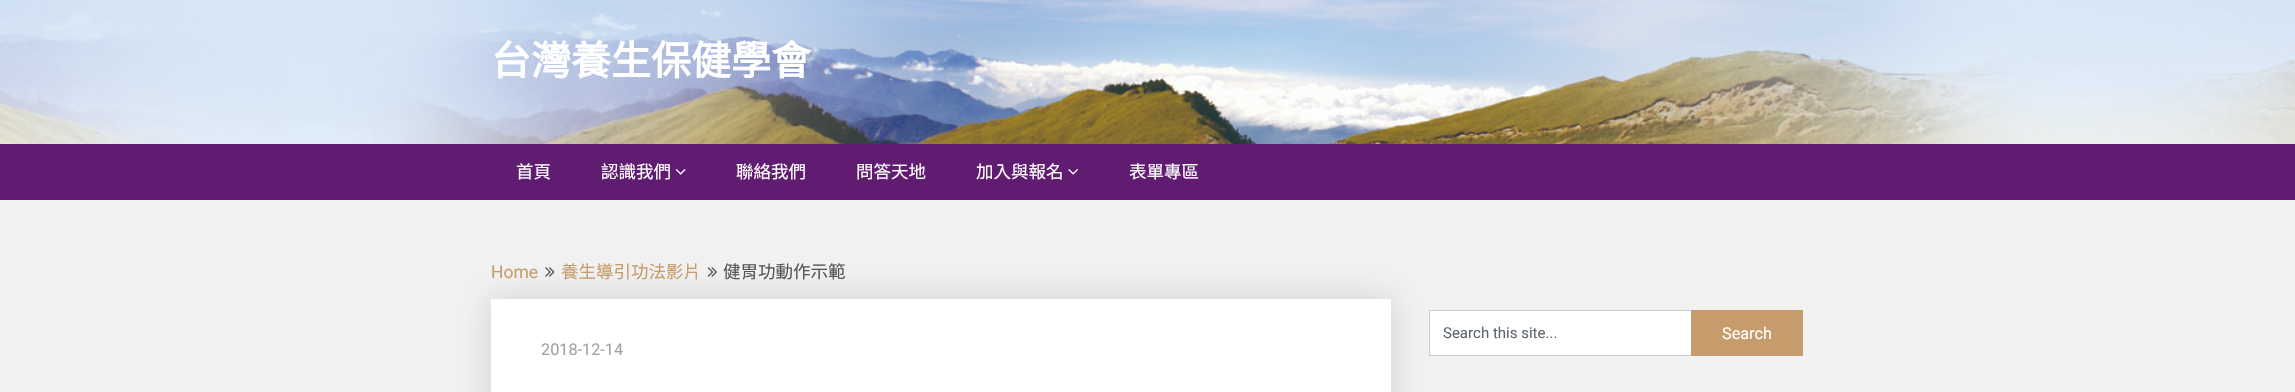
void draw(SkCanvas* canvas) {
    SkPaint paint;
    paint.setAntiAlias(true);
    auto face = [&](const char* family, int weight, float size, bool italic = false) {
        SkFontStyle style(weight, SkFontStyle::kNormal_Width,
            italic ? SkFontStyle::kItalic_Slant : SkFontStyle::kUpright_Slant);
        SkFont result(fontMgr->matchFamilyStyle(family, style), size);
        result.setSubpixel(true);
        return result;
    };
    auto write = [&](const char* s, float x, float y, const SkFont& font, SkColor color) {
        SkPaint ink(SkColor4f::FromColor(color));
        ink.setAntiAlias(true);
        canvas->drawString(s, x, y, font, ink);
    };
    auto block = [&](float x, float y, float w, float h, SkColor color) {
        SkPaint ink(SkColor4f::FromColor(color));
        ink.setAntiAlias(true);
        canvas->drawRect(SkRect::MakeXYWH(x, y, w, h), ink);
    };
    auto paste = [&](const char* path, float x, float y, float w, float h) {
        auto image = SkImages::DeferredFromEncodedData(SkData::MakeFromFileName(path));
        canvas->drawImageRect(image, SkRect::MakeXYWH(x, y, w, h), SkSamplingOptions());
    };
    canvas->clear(SkColorSetRGB(242, 242, 242));
    paste("pic1.png", 0, 0, 2295, 144);
    auto kFont1 = face("Noto Sans CJK TC", 700, 40);
    write("台灣養生保健學會", 491, 75, kFont1, SK_ColorWHITE);
    block(0, 144, 2295, 56, SkColorSetRGB(96, 28, 112));
    auto kFont2 = face("Noto Sans CJK TC", 400, 17.5f);
    write("首頁", 516, 178, kFont2, SK_ColorWHITE);
    write("認識我們", 601, 178, kFont2, SK_ColorWHITE);
    paste("pic2.png", 675, 169, 11, 6);
    write("聯絡我們", 736, 178, kFont2, SK_ColorWHITE);
    write("問答天地", 856, 178, kFont2, SK_ColorWHITE);
    write("加入與報名", 976, 178, kFont2, SK_ColorWHITE);
    paste("pic3.png", 1068, 169, 10, 6);
    write("表單專區", 1129, 178, kFont2, SK_ColorWHITE);
    paint.setColor(SkColorSetARGB(38, 0, 0, 0));
    paint.setMaskFilter(SkMaskFilter::MakeBlur(kNormal_SkBlurStyle, 15.5f));
    canvas->drawRect(SkRect::MakeXYWH(491, 299, 900, 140), paint);
    paint.setMaskFilter(nullptr);
    auto kFont3 = face("Roboto", 400, 17.5f);
    write("Home", 491, 278, kFont3, SkColorSetRGB(198, 156, 109));
    paste("pic4.png", 545, 267, 10, 10);
    write("養生導引功法影片", 561, 278, kFont2, SkColorSetRGB(198, 156, 109));
    paste("pic5.png", 707, 267, 10, 10);
    write("健胃功動作示範", 723, 278, kFont2, SkColorSetRGB(85, 85, 85));
    block(1430, 311, 261, 44, SK_ColorWHITE);
    block(1429, 310, 262, 1, SkColorSetRGB(204, 204, 204));
    block(1429, 355, 262, 1, SkColorSetRGB(204, 204, 204));
    block(1429, 310, 1, 46, SkColorSetRGB(204, 204, 204));
    auto kFont4 = face("Roboto", 400, 15);
    write("Search this site...", 1443, 338, kFont4, SkColorSetRGB(94, 101, 109));
    block(1691, 310, 112, 46, SkColorSetRGB(198, 156, 109));
    auto kFont5 = face("Roboto", 400, 16.25f);
    write("Search", 1722, 339, kFont5, SK_ColorWHITE);
    block(491, 299, 900, 93, SK_ColorWHITE);
    write("2018-12-14", 541, 355, kFont5, SkColorSetRGB(162, 162, 162));
}
